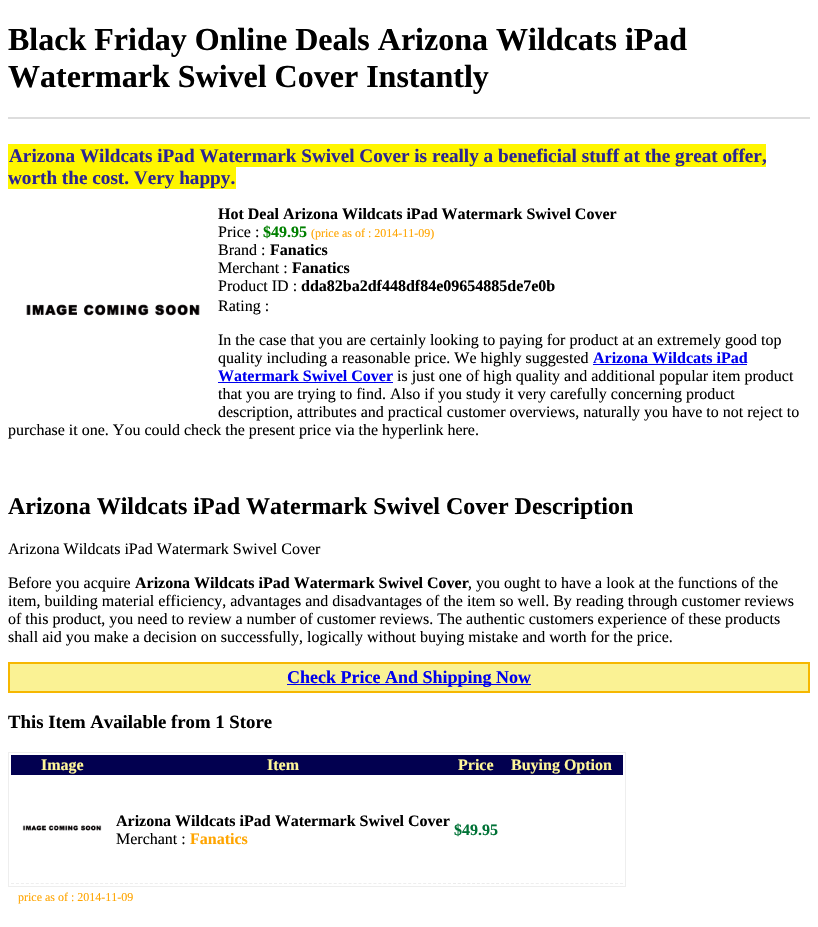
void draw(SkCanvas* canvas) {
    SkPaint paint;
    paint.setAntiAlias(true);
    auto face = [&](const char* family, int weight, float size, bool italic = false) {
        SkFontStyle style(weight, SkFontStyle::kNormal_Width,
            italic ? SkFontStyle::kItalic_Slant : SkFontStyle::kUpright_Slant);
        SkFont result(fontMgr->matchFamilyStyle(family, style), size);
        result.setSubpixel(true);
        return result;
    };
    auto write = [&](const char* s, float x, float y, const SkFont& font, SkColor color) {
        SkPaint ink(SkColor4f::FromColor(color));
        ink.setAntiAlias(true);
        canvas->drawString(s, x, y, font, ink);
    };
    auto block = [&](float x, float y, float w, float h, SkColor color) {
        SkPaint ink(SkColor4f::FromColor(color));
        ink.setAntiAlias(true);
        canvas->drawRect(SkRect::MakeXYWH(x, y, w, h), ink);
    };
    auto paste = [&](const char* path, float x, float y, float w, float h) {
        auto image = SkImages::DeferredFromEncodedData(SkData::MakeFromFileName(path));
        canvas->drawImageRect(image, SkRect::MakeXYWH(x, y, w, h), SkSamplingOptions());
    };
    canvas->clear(SK_ColorWHITE);
    auto kFont1 = face("Liberation Serif", 700, 32);
    write("Black Friday Online Deals Arizona Wildcats iPad", 8, 50, kFont1, SK_ColorBLACK);
    write("Watermark Swivel Cover Instantly", 8, 87, kFont1, SK_ColorBLACK);
    block(8, 117, 802, 2, SkColorSetRGB(221, 221, 221));
    block(8, 144, 758, 23, SkColorSetRGB(255, 246, 0));
    auto kFont2 = face("Liberation Serif", 700, 19.2f);
    write("Arizona Wildcats iPad Watermark Swivel Cover is really a beneficial stuff at the great offer,", 9, 162, kFont2, SkColorSetRGB(43, 36, 146));
    block(8, 167, 228, 22, SkColorSetRGB(255, 246, 0));
    write("worth the cost. Very happy.", 8, 184, kFont2, SkColorSetRGB(43, 36, 146));
    auto kFont3 = face("Liberation Serif", 700, 16);
    write("Hot Deal Arizona Wildcats iPad Watermark Swivel Cover", 218, 219, kFont3, SK_ColorBLACK);
    auto kFont4 = face("Liberation Serif", 400, 16);
    write("Price :", 218, 237, kFont4, SK_ColorBLACK);
    write("$49.95", 263, 237, kFont3, SkColorSetRGB(0, 128, 0));
    auto kFont5 = face("Liberation Serif", 400, 12);
    write("(price as of : 2014-11-09)", 311, 237, kFont5, SkColorSetRGB(255, 165, 0));
    write("Brand :", 218, 255, kFont4, SK_ColorBLACK);
    write("Fanatics", 270, 255, kFont3, SK_ColorBLACK);
    write("Merchant :", 218, 273, kFont4, SK_ColorBLACK);
    write("Fanatics", 292, 273, kFont3, SK_ColorBLACK);
    write("Product ID :", 218, 291, kFont4, SK_ColorBLACK);
    write("dda82ba2df448df84e09654885de7e0b", 301, 291, kFont3, SK_ColorBLACK);
    paste("pic1.png", 26, 304, 174, 12);
    write("Rating :", 218, 311, kFont4, SK_ColorBLACK);
    write("In the case that you are certainly looking to paying for product at an extremely good top", 218, 345, kFont4, SK_ColorBLACK);
    write("quality including a reasonable price. We highly suggested", 218, 363, kFont4, SK_ColorBLACK);
    write("Arizona Wildcats iPad", 593, 363, kFont3, SkColorSetRGB(0, 0, 238));
    block(593, 364, 154, 1, SkColorSetRGB(0, 0, 238));
    write("Watermark Swivel Cover", 218, 381, kFont3, SkColorSetRGB(0, 0, 238));
    block(218, 382, 175, 1, SkColorSetRGB(0, 0, 238));
    write("is just one of high quality and additional popular item product", 397, 381, kFont4, SK_ColorBLACK);
    write("that you are trying to find. Also if you study it very carefully concerning product", 218, 399, kFont4, SK_ColorBLACK);
    write("description, attributes and practical customer overviews, naturally you have to not reject to", 218, 417, kFont4, SK_ColorBLACK);
    write("purchase it one. You could check the present price via the hyperlink here.", 8, 435, kFont4, SK_ColorBLACK);
    auto kFont6 = face("Liberation Serif", 700, 24);
    write("Arizona Wildcats iPad Watermark Swivel Cover Description", 8, 514, kFont6, SK_ColorBLACK);
    write("Arizona Wildcats iPad Watermark Swivel Cover", 8, 554, kFont4, SK_ColorBLACK);
    write("Before you acquire", 8, 588, kFont4, SK_ColorBLACK);
    write("Arizona Wildcats iPad Watermark Swivel Cover", 135, 588, kFont3, SK_ColorBLACK);
    write(", you ought to have a look at the functions of the", 468, 588, kFont4, SK_ColorBLACK);
    write("item, building material efficiency, advantages and disadvantages of the item so well. By reading through customer reviews", 8, 606, kFont4, SK_ColorBLACK);
    write("of this product, you need to review a number of customer reviews. The authentic customers experience of these products", 8, 624, kFont4, SK_ColorBLACK);
    write("shall aid you make a decision on successfully, logically without buying mistake and worth for the price.", 8, 642, kFont4, SK_ColorBLACK);
    paint.setColor(SkColorSetRGB(250, 242, 148));
    canvas->drawRect(SkRect::MakeXYWH(9, 663, 800, 29), paint);
    paint.setStyle(SkPaint::kStroke_Style);
    paint.setStrokeWidth(2);
    paint.setColor(SkColorSetRGB(246, 183, 0));
    canvas->drawRect(SkRect::MakeXYWH(9, 663, 800, 29), paint);
    block(287, 684, 244, 1, SkColorSetRGB(0, 0, 238));
    auto kFont7 = face("Liberation Serif", 700, 18);
    write("Check Price And Shipping Now", 287, 683, kFont7, SkColorSetRGB(0, 0, 238));
    auto kFont8 = face("Liberation Serif", 700, 18.75f);
    write("This Item Available from 1 Store", 8, 728, kFont8, SK_ColorBLACK);
    paint.setStrokeWidth(1);
    paint.setColor(SkColorSetRGB(238, 238, 238));
    canvas->drawRect(SkRect::MakeXYWH(8.5f, 752.5f, 617, 134), paint);
    block(11, 755, 612, 20, SkColorSetRGB(2, 0, 80));
    write("Image", 41, 770, kFont3, SkColorSetRGB(255, 247, 153));
    write("Item", 267, 770, kFont3, SkColorSetRGB(255, 247, 153));
    write("Price", 458, 770, kFont3, SkColorSetRGB(255, 247, 153));
    write("Buying Option", 511, 770, kFont3, SkColorSetRGB(255, 247, 153));
    paint.setPathEffect(SkDashPathEffect::Make({{3, 1.95f}}, 0));
    canvas->drawPath(SkPathBuilder().moveTo(11, 883.5f).lineTo(113, 883.5f).detach(), paint);
    paint.setPathEffect(nullptr);
    paste("pic2.png", 22, 825, 80, 6);
    paint.setPathEffect(SkDashPathEffect::Make({{3, 1.97f}}, 0));
    canvas->drawPath(SkPathBuilder().moveTo(115, 883.5f).lineTo(451, 883.5f).detach(), paint);
    paint.setPathEffect(nullptr);
    write("Arizona Wildcats iPad Watermark Swivel Cover", 116, 826, kFont3, SK_ColorBLACK);
    write("Merchant :", 116, 844, kFont4, SK_ColorBLACK);
    write("Fanatics", 190, 844, kFont3, SkColorSetRGB(255, 165, 0));
    paint.setColor(SkColorSetRGB(235, 235, 235));
    paint.setPathEffect(SkDashPathEffect::Make({{3, 1.78f}}, 0));
    canvas->drawPath(SkPathBuilder().moveTo(453, 883.5f).lineTo(499, 883.5f).detach(), paint);
    paint.setPathEffect(nullptr);
    write("$49.95", 454, 835, kFont3, SkColorSetRGB(0, 114, 54));
    paint.setColor(SkColorSetRGB(238, 238, 238));
    paint.setPathEffect(SkDashPathEffect::Make({{3, 1.96f}}, 0));
    canvas->drawPath(SkPathBuilder().moveTo(501, 883.5f).lineTo(623, 883.5f).detach(), paint);
    paint.setPathEffect(nullptr);
    write("price as of : 2014-11-09", 18, 901, kFont5, SkColorSetRGB(255, 165, 0));
}
